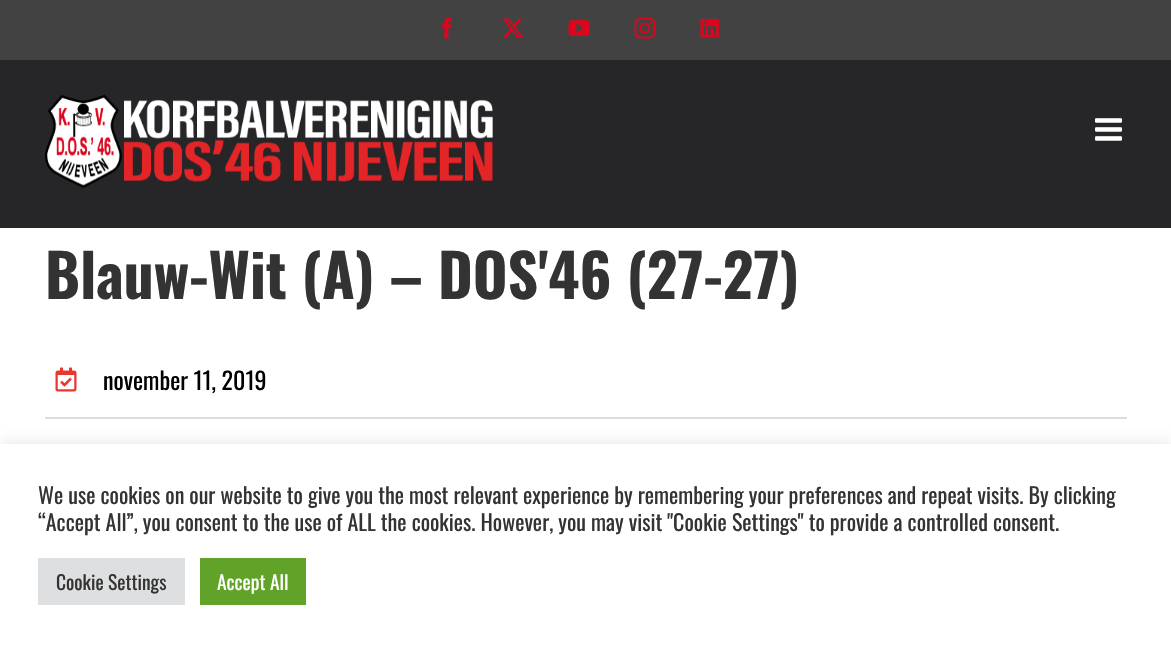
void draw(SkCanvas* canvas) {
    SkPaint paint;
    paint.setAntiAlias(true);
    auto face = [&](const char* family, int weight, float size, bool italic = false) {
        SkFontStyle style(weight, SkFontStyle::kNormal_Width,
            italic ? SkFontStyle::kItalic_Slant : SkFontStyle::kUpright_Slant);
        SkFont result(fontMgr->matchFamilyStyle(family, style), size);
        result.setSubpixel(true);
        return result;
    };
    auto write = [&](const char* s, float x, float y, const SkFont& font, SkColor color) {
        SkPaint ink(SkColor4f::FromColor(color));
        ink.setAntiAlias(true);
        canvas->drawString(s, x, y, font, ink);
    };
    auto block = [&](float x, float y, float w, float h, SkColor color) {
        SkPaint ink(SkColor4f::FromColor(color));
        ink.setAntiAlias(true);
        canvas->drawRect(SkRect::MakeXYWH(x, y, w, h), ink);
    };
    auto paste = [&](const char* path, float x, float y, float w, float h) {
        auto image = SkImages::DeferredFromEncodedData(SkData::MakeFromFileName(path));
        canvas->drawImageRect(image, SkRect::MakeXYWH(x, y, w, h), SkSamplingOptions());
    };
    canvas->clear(SK_ColorWHITE);
    block(0, 0, 1171, 60, SkColorSetRGB(66, 66, 66));
    paste("pic1.png", 441, 17, 11, 22);
    paste("pic2.png", 502, 18, 22, 20);
    paste("pic3.png", 568, 20, 22, 16);
    paste("pic4.png", 634, 17, 22, 22);
    paste("pic5.png", 700, 18, 19, 20);
    block(0, 60, 1171, 168, SkColorSetRGB(38, 37, 40));
    paste("pic6.png", 45, 94, 448, 95);
    paste("pic7.png", 1095, 118, 27, 23);
    auto kFont1 = face("Oswald", 700, 59.5f);
    write("Blauw-Wit (A) – DOS'46 (27-27)", 45, 299, kFont1, SkColorSetRGB(51, 51, 51));
    paste("pic8.png", 55, 367, 22, 25);
    auto kFont2 = face("Oswald", 400, 24);
    write("november 11, 2019", 103, 390, kFont2, SK_ColorBLACK);
    block(45, 417, 1082, 2, SkColorSetRGB(221, 219, 219));
    paint.setColor(SkColorSetARGB(77, 172, 171, 171));
    paint.setMaskFilter(SkMaskFilter::MakeBlur(kNormal_SkBlurStyle, 7.5f));
    canvas->drawRect(SkRect::MakeXYWH(0, 443, 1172, 205), paint);
    paint.setMaskFilter(nullptr);
    block(0, 444, 1171, 205, SK_ColorWHITE);
    auto kFont3 = face("Oswald", 400, 22);
    write("We use cookies on our website to give you the most relevant experience by remembering your preferences and repeat visits. By clicking", 38, 504, kFont3, SkColorSetRGB(51, 51, 51));
    write("“Accept All”, you consent to the use of ALL the cookies. However, you may visit \"Cookie Settings\" to provide a controlled consent.", 38, 531, kFont3, SkColorSetRGB(51, 51, 51));
    block(38, 558, 147, 47, SkColorSetRGB(222, 223, 224));
    auto kFont4 = face("Oswald", 400, 19.5f);
    write("Cookie Settings", 56, 590, kFont4, SkColorSetRGB(51, 51, 51));
    block(200, 558, 106, 47, SkColorSetRGB(97, 162, 41));
    write("Accept All", 217, 590, kFont4, SK_ColorWHITE);
}
